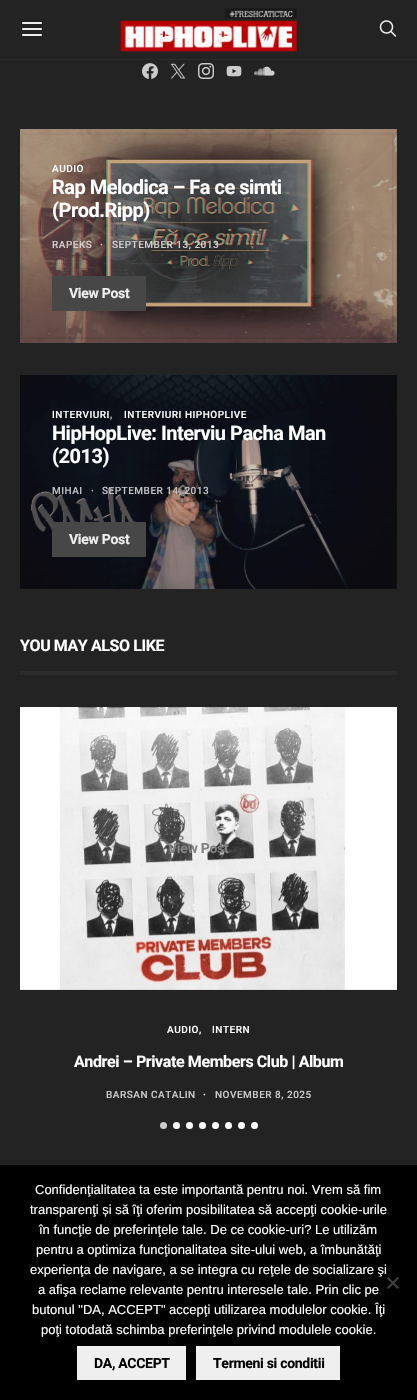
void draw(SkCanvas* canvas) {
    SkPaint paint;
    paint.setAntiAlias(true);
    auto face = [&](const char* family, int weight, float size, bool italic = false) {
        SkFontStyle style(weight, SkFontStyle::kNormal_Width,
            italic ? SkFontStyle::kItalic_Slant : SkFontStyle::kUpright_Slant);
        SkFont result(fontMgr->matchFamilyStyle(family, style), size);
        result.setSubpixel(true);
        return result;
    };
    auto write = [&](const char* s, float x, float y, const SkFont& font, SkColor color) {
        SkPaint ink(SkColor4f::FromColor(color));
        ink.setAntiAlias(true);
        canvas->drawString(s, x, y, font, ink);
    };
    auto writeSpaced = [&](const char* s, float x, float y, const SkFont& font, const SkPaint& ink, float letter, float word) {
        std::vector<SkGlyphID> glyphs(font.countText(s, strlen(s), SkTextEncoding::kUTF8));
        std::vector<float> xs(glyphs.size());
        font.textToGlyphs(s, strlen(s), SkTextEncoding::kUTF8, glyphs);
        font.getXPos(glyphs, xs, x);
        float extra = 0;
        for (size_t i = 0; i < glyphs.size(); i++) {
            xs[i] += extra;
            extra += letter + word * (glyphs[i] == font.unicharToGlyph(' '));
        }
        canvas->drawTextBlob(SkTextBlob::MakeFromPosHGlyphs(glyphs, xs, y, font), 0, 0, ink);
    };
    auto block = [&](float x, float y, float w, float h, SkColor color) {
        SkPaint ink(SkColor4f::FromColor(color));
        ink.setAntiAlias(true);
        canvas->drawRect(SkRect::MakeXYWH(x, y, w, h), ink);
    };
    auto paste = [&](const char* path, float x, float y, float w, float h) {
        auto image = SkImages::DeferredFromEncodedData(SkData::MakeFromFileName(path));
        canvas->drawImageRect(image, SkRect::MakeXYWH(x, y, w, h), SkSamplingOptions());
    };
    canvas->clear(SkColorSetRGB(35, 35, 35));
    block(0, 59, 417, 1, SkColorSetRGB(43, 43, 43));
    paste("pic1.png", 22, 22, 20, 14);
    paste("pic2.png", 120, 8, 177, 44);
    paste("pic3.png", 379, 20, 18, 17);
    paste("pic4.png", 142, 63, 16, 16);
    paste("pic5.png", 170, 63, 16, 16);
    paste("pic6.png", 198, 63, 16, 16);
    paste("pic7.png", 226, 66, 16, 11);
    paste("pic8.png", 254, 66, 21, 10);
    paste("pic9.png", 20, 129, 377, 214);
    auto kFont1 = face("Roboto", 500, 10);
    paint.setColor(SK_ColorWHITE);
    writeSpaced("AUDIO", 52, 172, kFont1, paint, 0.5f, 0);
    auto kFont2 = face("Roboto", 700, 20);
    writeSpaced("Rap Melodica – Fa ce simti", 52, 194, kFont2, paint, -0.5f, 0);
    writeSpaced("(Prod.Ripp)", 52, 217, kFont2, paint, -0.5f, 0);
    paint.setColor(SkColorSetRGB(212, 206, 206));
    writeSpaced("RAPEKS", 52, 248, kFont1, paint, 0.5f, 0);
    writeSpaced("·", 100, 248, kFont1, paint, 0.5f, 0);
    writeSpaced("SEPTEMBER 13, 2013", 112, 248, kFont1, paint, 0.5f, 0);
    block(52, 276, 94, 35, SkColorSetRGB(71, 71, 71));
    auto kFont3 = face("Roboto", 700, 14);
    paint.setColor(SkColorSetRGB(238, 238, 238));
    writeSpaced("View Post", 69, 298, kFont3, paint, -0.3f, 0);
    paste("pic10.png", 20, 375, 377, 214);
    paint.setColor(SK_ColorWHITE);
    writeSpaced("INTERVIURI", 52, 418, kFont1, paint, 0.5f, 0);
    paint.setColor(SkColorSetRGB(194, 195, 197));
    writeSpaced(",", 110, 418, kFont1, paint, 0.5f, 0);
    paint.setColor(SK_ColorWHITE);
    writeSpaced("INTERVIURI HIPHOPLIVE", 124, 418, kFont1, paint, 0.5f, 0);
    writeSpaced("HipHopLive: Interviu Pacha Man", 52, 440, kFont2, paint, -0.5f, 0);
    writeSpaced("(2013)", 52, 463, kFont2, paint, -0.5f, 0);
    paint.setColor(SkColorSetRGB(194, 195, 197));
    writeSpaced("MIHAI", 52, 494, kFont1, paint, 0.5f, 0);
    writeSpaced("·", 91, 494, kFont1, paint, 0.5f, 0);
    writeSpaced("SEPTEMBER 14, 2013", 102, 494, kFont1, paint, 0.5f, 0);
    block(52, 522, 94, 35, SkColorSetRGB(71, 71, 71));
    paint.setColor(SkColorSetRGB(238, 238, 238));
    writeSpaced("View Post", 69, 544, kFont3, paint, -0.3f, 0);
    block(20, 671, 377, 4, SkColorSetRGB(43, 43, 43));
    auto kFont4 = face("Roboto", 700, 16);
    paint.setColor(SK_ColorWHITE);
    writeSpaced("YOU MAY ALSO LIKE", 20, 651, kFont4, paint, -0.4f, 0);
    paste("pic11.png", 20, 707, 377, 283);
    paint.setColor(SkColorSetRGB(130, 130, 130));
    writeSpaced("View Post", 168, 853, kFont3, paint, -0.3f, 0);
    paint.setColor(SK_ColorWHITE);
    writeSpaced("AUDIO,", 167, 1033, kFont1, paint, 0.5f, 0);
    writeSpaced("INTERN", 212, 1033, kFont1, paint, 0.5f, 0);
    writeSpaced("Andrei – Private Members Club | Album", 74, 1067, kFont4, paint, -0.4f, 0);
    paint.setColor(SkColorSetRGB(204, 204, 204));
    writeSpaced("BARSAN CATALIN", 106, 1098, kFont1, paint, 0.5f, 0);
    paint.setColor(SK_ColorWHITE);
    writeSpaced("·", 203, 1098, kFont1, paint, 0.5f, 0);
    paint.setColor(SkColorSetRGB(204, 204, 204));
    writeSpaced("NOVEMBER 8, 2025", 215, 1098, kFont1, paint, 0.5f, 0);
    canvas->drawCircle(163.5f, 1125.5f, 3.5f, paint);
    paint.setColor(SK_ColorWHITE);
    canvas->drawCircle(176.5f, 1125.5f, 3.5f, paint);
    canvas->drawCircle(189.5f, 1125.5f, 3.5f, paint);
    canvas->drawCircle(202.5f, 1125.5f, 3.5f, paint);
    canvas->drawCircle(215.5f, 1125.5f, 3.5f, paint);
    canvas->drawCircle(228.5f, 1125.5f, 3.5f, paint);
    canvas->drawCircle(241.5f, 1125.5f, 3.5f, paint);
    canvas->drawCircle(254.5f, 1125.5f, 3.5f, paint);
    block(0, 1165, 417, 235, SK_ColorBLACK);
    auto kFont5 = face("Liberation Sans", 400, 13);
    write("Confidenţialitatea ta este importantă pentru noi. Vrem să fim", 35, 1194, kFont5, SK_ColorWHITE);
    write("transparenţi și să îţi oferim posibilitatea să accepţi cookie-urile", 30, 1214, kFont5, SK_ColorWHITE);
    write("în funcţie de preferinţele tale. De ce cookie-uri? Le utilizăm", 39, 1234, kFont5, SK_ColorWHITE);
    write("pentru a optimiza funcţionalitatea site-ului web, a îmbunătăţi", 36, 1254, kFont5, SK_ColorWHITE);
    write("experienţa de navigare, a se integra cu reţele de socializare şi", 30, 1274, kFont5, SK_ColorWHITE);
    write("a afişa reclame relevante pentru interesele tale. Prin clic pe", 38, 1294, kFont5, SK_ColorWHITE);
    write("butonul \"DA, ACCEPT\" accepţi utilizarea modulelor cookie. Îţi", 32, 1314, kFont5, SK_ColorWHITE);
    write("poţi totodată schimba preferinţele privind modulele cookie.", 41, 1334, kFont5, SK_ColorWHITE);
    paint.setColor(SkColorSetRGB(64, 64, 64));
    canvas->drawPath(SkPathBuilder().moveTo(397.5f, 1277).lineTo(399, 1278.5f).lineTo(388.5f, 1289).lineTo(387, 1287.5f).close().detach(), paint);
    canvas->drawPath(SkPathBuilder().moveTo(387, 1278.5f).lineTo(388.5f, 1277).lineTo(399, 1287.5f).lineTo(397.5f, 1289).close().detach(), paint);
    block(77, 1346, 109, 34, SkColorSetRGB(239, 239, 239));
    paint.setColor(SK_ColorBLACK);
    writeSpaced("DA, ACCEPT", 94, 1368, kFont3, paint, -0.3f, 0);
    block(196, 1346, 144, 34, SkColorSetRGB(239, 239, 239));
    writeSpaced("Termeni si conditii", 213, 1368, kFont3, paint, -0.3f, 0);
}
